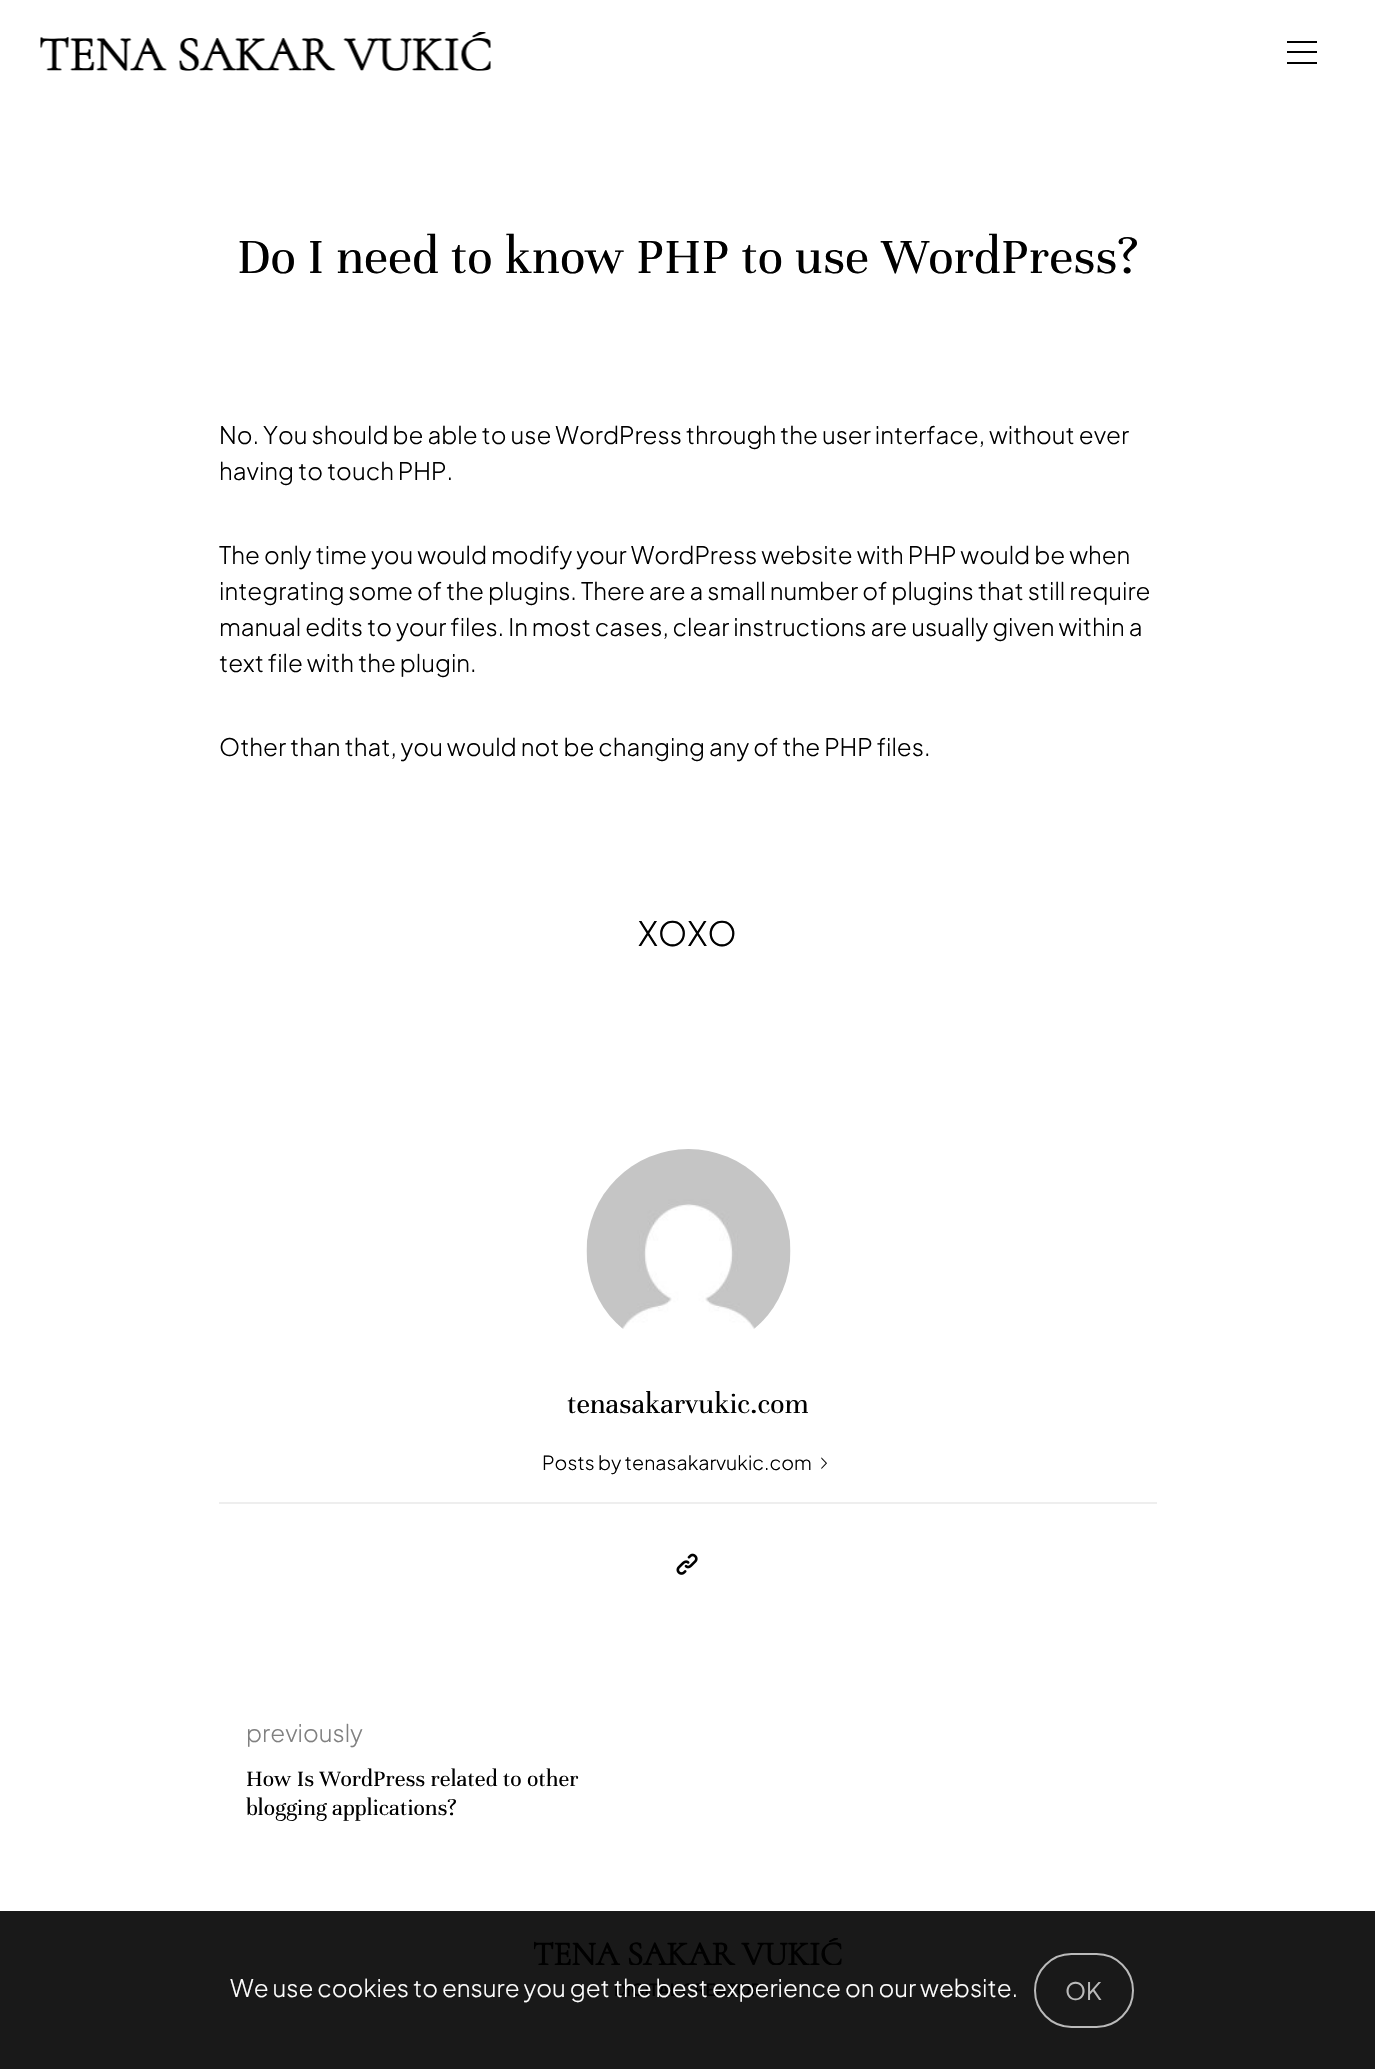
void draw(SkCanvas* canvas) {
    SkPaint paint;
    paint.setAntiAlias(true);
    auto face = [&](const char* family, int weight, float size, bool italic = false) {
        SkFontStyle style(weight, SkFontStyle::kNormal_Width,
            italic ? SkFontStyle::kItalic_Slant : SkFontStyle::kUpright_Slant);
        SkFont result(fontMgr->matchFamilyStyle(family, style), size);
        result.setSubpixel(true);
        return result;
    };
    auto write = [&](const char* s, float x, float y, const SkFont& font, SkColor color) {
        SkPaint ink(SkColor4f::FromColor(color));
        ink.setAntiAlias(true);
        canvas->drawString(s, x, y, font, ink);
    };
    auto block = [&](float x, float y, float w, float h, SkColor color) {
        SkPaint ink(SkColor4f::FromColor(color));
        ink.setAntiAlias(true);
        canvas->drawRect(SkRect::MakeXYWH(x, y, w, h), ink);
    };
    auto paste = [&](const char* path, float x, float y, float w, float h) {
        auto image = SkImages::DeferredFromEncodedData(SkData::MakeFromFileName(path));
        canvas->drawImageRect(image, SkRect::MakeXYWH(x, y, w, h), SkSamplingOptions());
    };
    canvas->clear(SK_ColorWHITE);
    block(0, 1911, 1375, 158, SkColorSetRGB(25, 25, 25));
    paste("pic1.png", 40, 32, 451, 39);
    block(1287, 51, 30, 2, SK_ColorBLACK);
    block(1287, 41, 30, 2, SK_ColorBLACK);
    block(1287, 62, 30, 2, SK_ColorBLACK);
    auto kFont1 = face("Unna", 400, 53.6f);
    write("Do I need to know PHP to use WordPress?", 237, 273, kFont1, SK_ColorBLACK);
    auto kFont2 = face("Plus Jakarta Sans", 300, 24);
    write("No. You should be able to use WordPress through the user interface, without ever", 219, 444, kFont2, SK_ColorBLACK);
    write("having to touch PHP.", 219, 480, kFont2, SK_ColorBLACK);
    write("The only time you would modify your WordPress website with PHP would be when", 219, 564, kFont2, SK_ColorBLACK);
    write("integrating some of the plugins. There are a small number of plugins that still require", 219, 600, kFont2, SK_ColorBLACK);
    write("manual edits to your files. In most cases, clear instructions are usually given within a", 219, 636, kFont2, SK_ColorBLACK);
    write("text file with the plugin.", 219, 672, kFont2, SK_ColorBLACK);
    write("Other than that, you would not be changing any of the PHP files.", 219, 756, kFont2, SK_ColorBLACK);
    auto kFont3 = face("Plus Jakarta Sans", 300, 33.5f);
    write("XOXO", 638, 946, kFont3, SK_ColorBLACK);
    paste("pic2.png", 586, 1149, 205, 180);
    auto kFont4 = face("Unna", 400, 30);
    write("tenasakarvukic.com", 567, 1413, kFont4, SK_ColorBLACK);
    auto kFont5 = face("Plus Jakarta Sans", 300, 19.5f);
    write("Posts by tenasakarvukic.com", 542, 1470, kFont5, SK_ColorBLACK);
    paste("pic3.png", 821, 1457, 6, 12);
    block(219, 1502, 938, 2, SkColorSetRGB(238, 238, 238));
    paste("pic4.png", 676, 1553, 22, 22);
    write("previously", 246, 1742, kFont2, SkColorSetRGB(128, 128, 128));
    auto kFont6 = face("Unna", 400, 24);
    write("How Is WordPress related to other", 246, 1786, kFont6, SK_ColorBLACK);
    write("blogging applications?", 246, 1815, kFont6, SK_ColorBLACK);
    paste("pic5.png", 534, 1938, 308, 27);
    auto kFont7 = face("Plus Jakarta Sans", 600, 16.75f);
    write("DIGITAL CREATOR", 614, 1996, kFont7, SK_ColorBLACK);
    write("We use cookies to ensure you get the best experience on our website.", 230, 1997, kFont2, SK_ColorWHITE);
    paint.setStyle(SkPaint::kStroke_Style);
    paint.setStrokeWidth(2);
    paint.setColor(SkColorSetRGB(186, 186, 186));
    canvas->drawRoundRect(SkRect::MakeXYWH(1035, 1954, 98, 73), 36.5f, 36.5f, paint);
    auto kFont8 = face("Plus Jakarta Sans", 400, 24);
    write("OK", 1065, 2000, kFont8, SkColorSetRGB(186, 186, 186));
}
